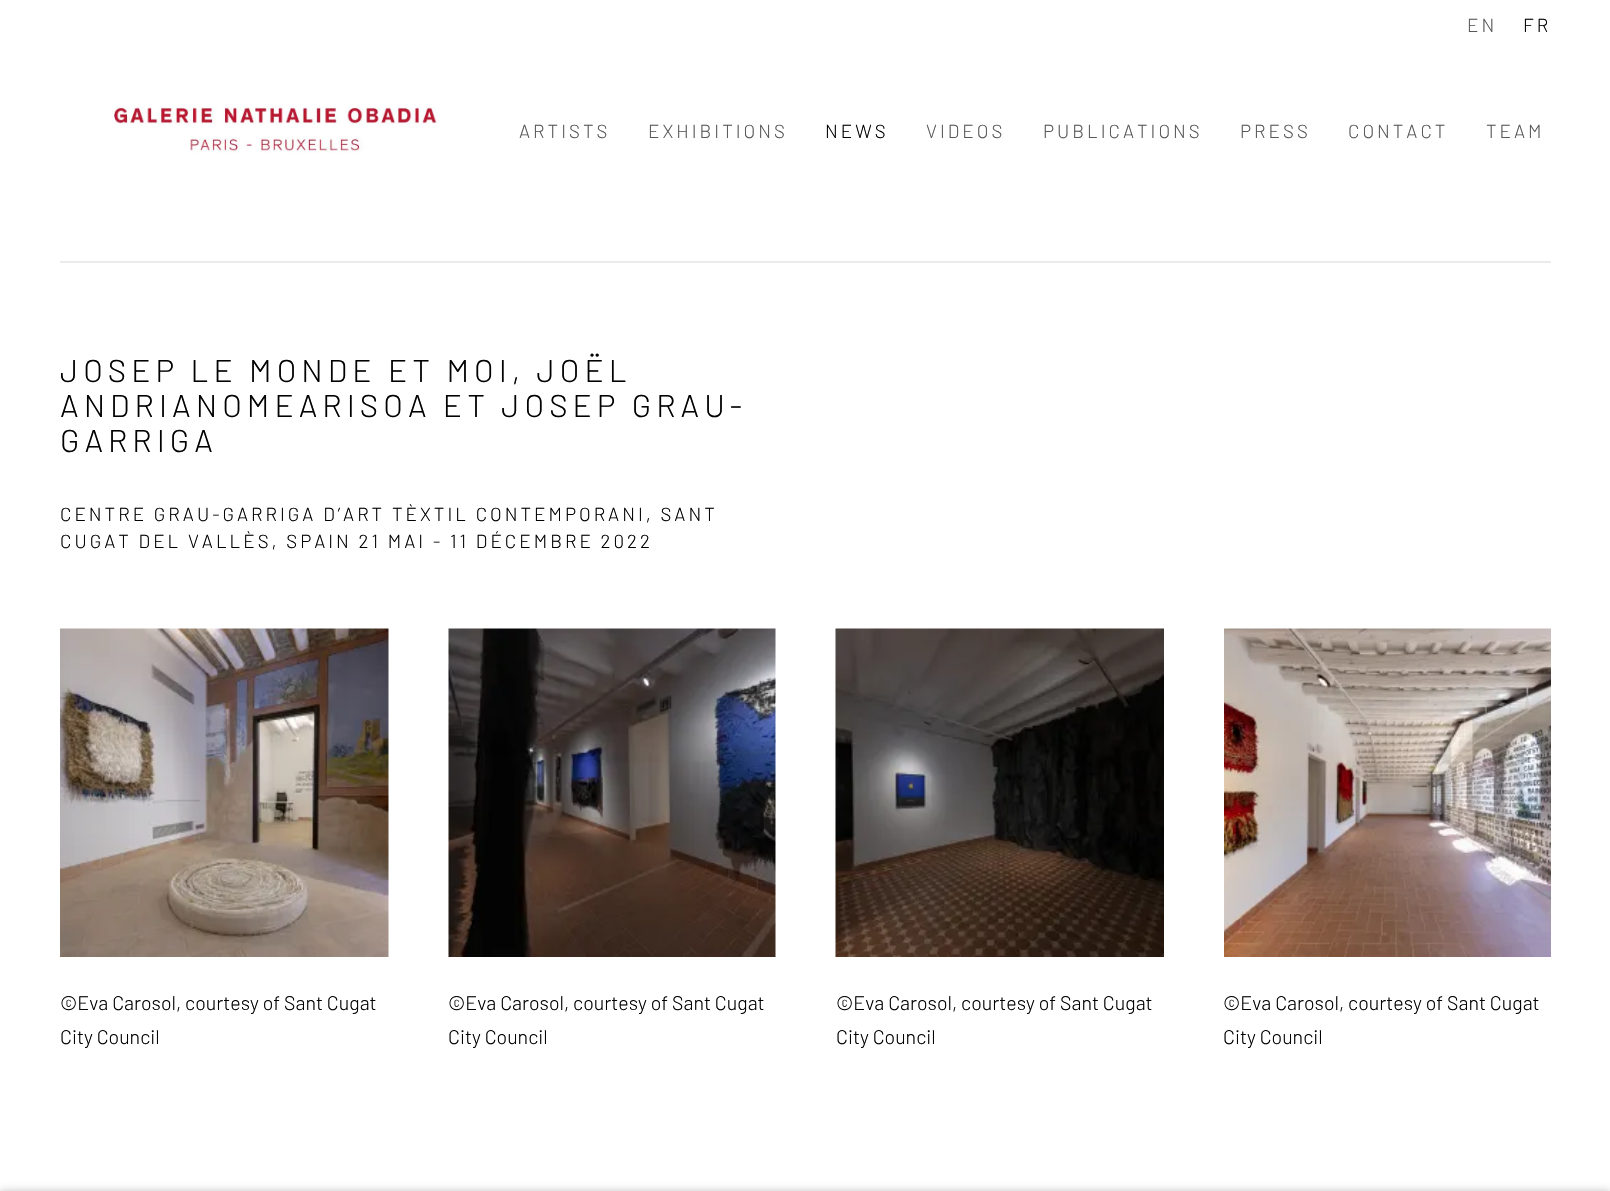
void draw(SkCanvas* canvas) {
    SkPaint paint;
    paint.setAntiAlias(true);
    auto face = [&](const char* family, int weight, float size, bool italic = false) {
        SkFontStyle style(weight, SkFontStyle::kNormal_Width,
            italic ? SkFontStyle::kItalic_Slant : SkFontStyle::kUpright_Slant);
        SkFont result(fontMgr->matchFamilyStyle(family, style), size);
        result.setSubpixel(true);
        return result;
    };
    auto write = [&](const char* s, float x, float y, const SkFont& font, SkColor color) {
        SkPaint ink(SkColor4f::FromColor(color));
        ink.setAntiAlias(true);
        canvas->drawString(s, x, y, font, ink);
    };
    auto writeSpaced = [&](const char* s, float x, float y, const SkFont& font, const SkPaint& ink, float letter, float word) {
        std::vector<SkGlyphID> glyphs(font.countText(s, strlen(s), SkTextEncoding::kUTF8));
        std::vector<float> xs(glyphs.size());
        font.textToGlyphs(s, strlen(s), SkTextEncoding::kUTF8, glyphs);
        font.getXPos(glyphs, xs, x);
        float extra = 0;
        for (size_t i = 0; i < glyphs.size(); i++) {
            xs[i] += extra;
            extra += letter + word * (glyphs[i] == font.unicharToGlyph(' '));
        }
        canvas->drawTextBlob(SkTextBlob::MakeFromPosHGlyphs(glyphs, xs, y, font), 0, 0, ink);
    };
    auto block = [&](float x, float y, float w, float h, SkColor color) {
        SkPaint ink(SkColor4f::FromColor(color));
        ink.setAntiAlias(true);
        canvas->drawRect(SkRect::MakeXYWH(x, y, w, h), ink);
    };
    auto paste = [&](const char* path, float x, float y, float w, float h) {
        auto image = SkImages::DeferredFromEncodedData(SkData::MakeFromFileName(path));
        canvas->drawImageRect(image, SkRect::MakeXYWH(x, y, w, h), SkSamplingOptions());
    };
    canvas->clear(SK_ColorWHITE);
    block(60, 261, 1491, 2, SkColorSetRGB(235, 235, 235));
    paste("pic1.png", 112, 106, 326, 47);
    auto kFont1 = face("Barlow", 300, 18.75f);
    paint.setColor(SkColorSetRGB(88, 88, 88));
    writeSpaced("EN", 1467, 32, kFont1, paint, 3, 0);
    paint.setColor(SkColorSetRGB(1, 1, 1));
    writeSpaced("FR", 1523, 32, kFont1, paint, 3, 0);
    paint.setColor(SkColorSetRGB(88, 88, 88));
    writeSpaced("ARTISTS", 519, 138, kFont1, paint, 3, 0);
    writeSpaced("EXHIBITIONS", 648, 138, kFont1, paint, 3, 0);
    paint.setColor(SkColorSetRGB(1, 1, 1));
    writeSpaced("NEWS", 825, 138, kFont1, paint, 3, 0);
    paint.setColor(SkColorSetRGB(88, 88, 88));
    writeSpaced("VIDEOS", 926, 138, kFont1, paint, 3, 0);
    writeSpaced("PUBLICATIONS", 1043, 138, kFont1, paint, 3, 0);
    writeSpaced("PRESS", 1240, 138, kFont1, paint, 3, 0);
    writeSpaced("CONTACT", 1348, 138, kFont1, paint, 3, 0);
    writeSpaced("TEAM", 1486, 138, kFont1, paint, 3, 0);
    auto kFont2 = face("Barlow", 300, 31.5f);
    paint.setColor(SkColorSetRGB(1, 1, 1));
    writeSpaced("JOSEP LE MONDE ET MOI, JOËL", 60, 382, kFont2, paint, 5.05f, 0);
    writeSpaced("ANDRIANOMEARISOA ET JOSEP GRAU-", 60, 417, kFont2, paint, 5.05f, 0);
    writeSpaced("GARRIGA", 60, 452, kFont2, paint, 5.05f, 0);
    writeSpaced("CENTRE GRAU-GARRIGA D’ART TÈXTIL CONTEMPORANI, SANT", 60, 521, kFont1, paint, 3, 0);
    writeSpaced("CUGAT DEL VALLÈS, SPAIN 21 MAI - 11 DÉCEMBRE 2022", 60, 548, kFont1, paint, 3, 0);
    paste("pic2.png", 60, 628, 329, 329);
    auto kFont3 = face("Barlow", 300, 19.6f);
    write("©Eva Carosol, courtesy of Sant Cugat", 60, 1010, kFont3, SkColorSetRGB(1, 1, 1));
    write("City Council", 60, 1044, kFont3, SkColorSetRGB(1, 1, 1));
    paste("pic3.png", 448, 628, 328, 329);
    write("©Eva Carosol, courtesy of Sant Cugat", 448, 1010, kFont3, SkColorSetRGB(1, 1, 1));
    write("City Council", 448, 1044, kFont3, SkColorSetRGB(1, 1, 1));
    paste("pic4.png", 835, 628, 329, 329);
    write("©Eva Carosol, courtesy of Sant Cugat", 836, 1010, kFont3, SkColorSetRGB(1, 1, 1));
    write("City Council", 836, 1044, kFont3, SkColorSetRGB(1, 1, 1));
    paste("pic5.png", 1224, 628, 327, 329);
    write("©Eva Carosol, courtesy of Sant Cugat", 1223, 1010, kFont3, SkColorSetRGB(1, 1, 1));
    write("City Council", 1223, 1044, kFont3, SkColorSetRGB(1, 1, 1));
    paint.setColor(SkColorSetARGB(59, 0, 0, 0));
    paint.setMaskFilter(SkMaskFilter::MakeBlur(kNormal_SkBlurStyle, 4));
    canvas->drawRect(SkRect::MakeXYWH(0, 1191, 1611, 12), paint);
    paint.setMaskFilter(nullptr);
}
